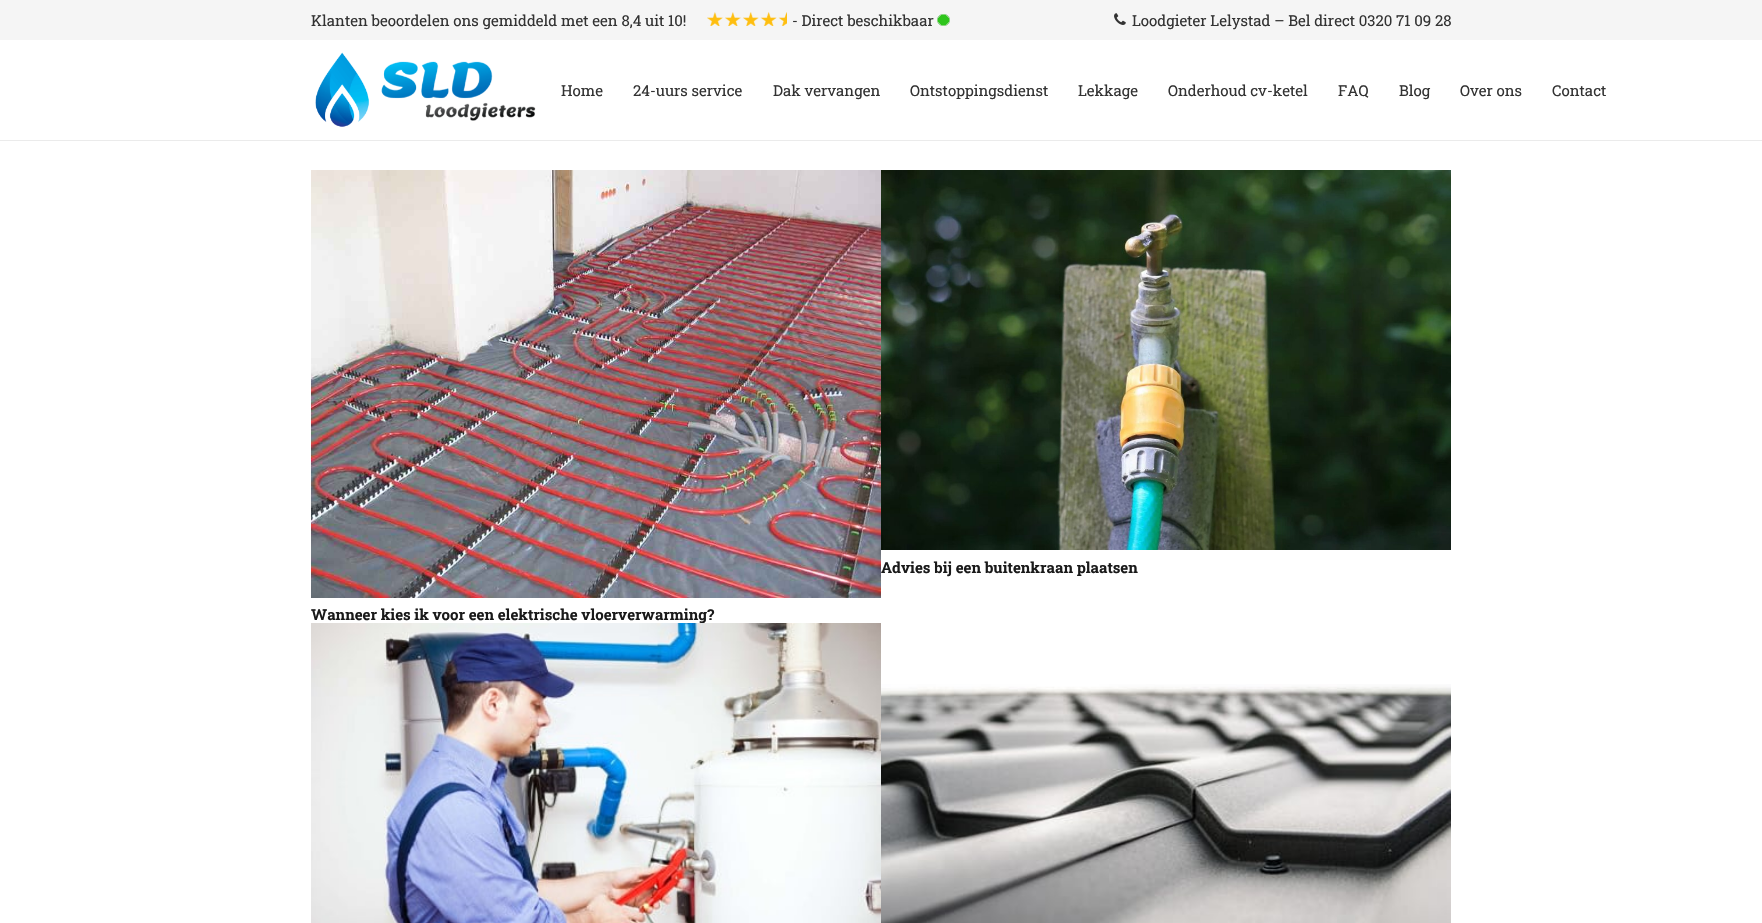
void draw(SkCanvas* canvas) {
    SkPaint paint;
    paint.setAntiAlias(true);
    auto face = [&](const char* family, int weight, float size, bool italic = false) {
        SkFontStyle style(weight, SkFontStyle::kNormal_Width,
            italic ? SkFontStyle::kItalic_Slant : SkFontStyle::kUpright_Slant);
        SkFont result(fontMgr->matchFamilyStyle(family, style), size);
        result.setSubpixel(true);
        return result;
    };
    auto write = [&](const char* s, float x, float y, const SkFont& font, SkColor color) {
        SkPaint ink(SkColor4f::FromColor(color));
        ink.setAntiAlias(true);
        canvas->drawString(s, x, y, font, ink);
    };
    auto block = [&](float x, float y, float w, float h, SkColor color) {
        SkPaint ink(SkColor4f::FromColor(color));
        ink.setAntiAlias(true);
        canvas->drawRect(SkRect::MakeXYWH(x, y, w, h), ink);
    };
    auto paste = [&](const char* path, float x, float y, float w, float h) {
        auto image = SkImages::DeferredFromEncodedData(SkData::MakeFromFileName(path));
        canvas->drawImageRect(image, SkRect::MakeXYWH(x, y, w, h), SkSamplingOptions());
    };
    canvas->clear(SK_ColorWHITE);
    block(0, 0, 1762, 40, SkColorSetRGB(245, 245, 245));
    auto kFont1 = face("Roboto Slab", 400, 15);
    write("Klanten beoordelen ons gemiddeld met een 8,4 uit 10!", 311, 26, kFont1, SkColorSetRGB(51, 51, 51));
    paste("pic1.png", 707, 12, 80, 14);
    write("- Direct beschikbaar", 792, 26, kFont1, SkColorSetRGB(51, 51, 51));
    paste("pic2.png", 937, 14, 13, 12);
    paste("pic3.png", 1114, 13, 12, 12);
    write("Loodgieter Lelystad – Bel direct 0320 71 09 28", 1132, 26, kFont1, SkColorSetRGB(51, 51, 51));
    block(0, 140, 1762, 1, SkColorSetRGB(235, 235, 235));
    paste("pic4.png", 315, 52, 221, 75);
    write("Home", 561, 96, kFont1, SkColorSetRGB(51, 51, 51));
    write("24-uurs service", 633, 96, kFont1, SkColorSetRGB(51, 51, 51));
    write("Dak vervangen", 773, 96, kFont1, SkColorSetRGB(51, 51, 51));
    write("Ontstoppingsdienst", 910, 96, kFont1, SkColorSetRGB(51, 51, 51));
    write("Lekkage", 1078, 96, kFont1, SkColorSetRGB(51, 51, 51));
    write("Onderhoud cv-ketel", 1168, 96, kFont1, SkColorSetRGB(51, 51, 51));
    write("FAQ", 1338, 96, kFont1, SkColorSetRGB(51, 51, 51));
    write("Blog", 1399, 96, kFont1, SkColorSetRGB(51, 51, 51));
    write("Over ons", 1460, 96, kFont1, SkColorSetRGB(51, 51, 51));
    write("Contact", 1552, 96, kFont1, SkColorSetRGB(51, 51, 51));
    paste("pic5.png", 881, 170, 570, 380);
    auto kFont2 = face("Roboto Slab", 700, 15);
    write("Advies bij een buitenkraan plaatsen", 881, 573, kFont2, SkColorSetRGB(26, 26, 26));
    paste("pic6.png", 311, 170, 570, 428);
    write("Wanneer kies ik voor een elektrische vloerverwarming?", 311, 620, kFont2, SkColorSetRGB(26, 26, 26));
    paste("pic7.png", 311, 623, 570, 300);
    paste("pic8.png", 881, 684, 570, 239);
}
